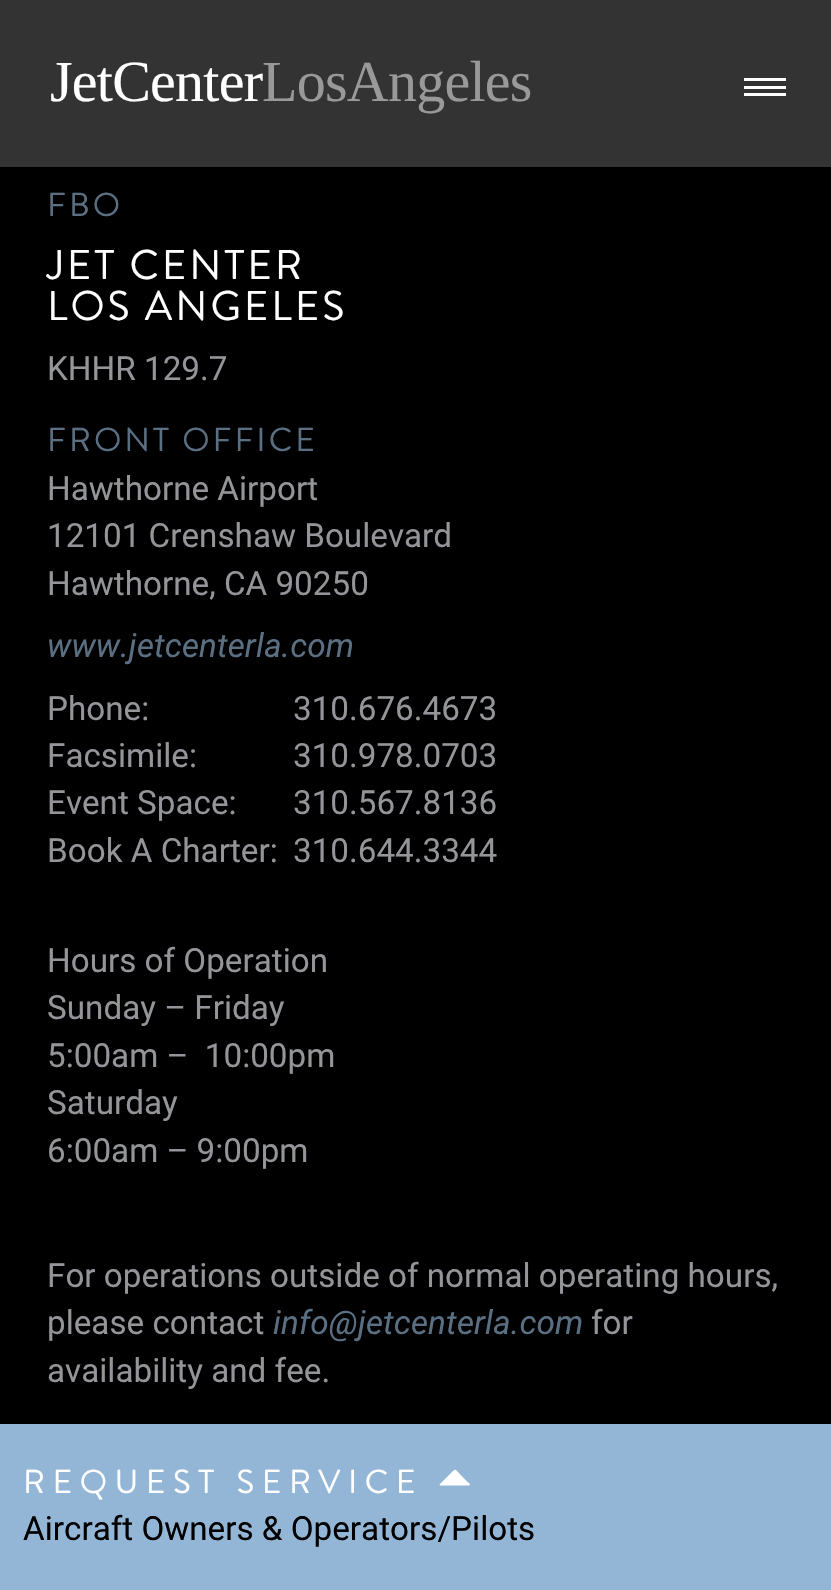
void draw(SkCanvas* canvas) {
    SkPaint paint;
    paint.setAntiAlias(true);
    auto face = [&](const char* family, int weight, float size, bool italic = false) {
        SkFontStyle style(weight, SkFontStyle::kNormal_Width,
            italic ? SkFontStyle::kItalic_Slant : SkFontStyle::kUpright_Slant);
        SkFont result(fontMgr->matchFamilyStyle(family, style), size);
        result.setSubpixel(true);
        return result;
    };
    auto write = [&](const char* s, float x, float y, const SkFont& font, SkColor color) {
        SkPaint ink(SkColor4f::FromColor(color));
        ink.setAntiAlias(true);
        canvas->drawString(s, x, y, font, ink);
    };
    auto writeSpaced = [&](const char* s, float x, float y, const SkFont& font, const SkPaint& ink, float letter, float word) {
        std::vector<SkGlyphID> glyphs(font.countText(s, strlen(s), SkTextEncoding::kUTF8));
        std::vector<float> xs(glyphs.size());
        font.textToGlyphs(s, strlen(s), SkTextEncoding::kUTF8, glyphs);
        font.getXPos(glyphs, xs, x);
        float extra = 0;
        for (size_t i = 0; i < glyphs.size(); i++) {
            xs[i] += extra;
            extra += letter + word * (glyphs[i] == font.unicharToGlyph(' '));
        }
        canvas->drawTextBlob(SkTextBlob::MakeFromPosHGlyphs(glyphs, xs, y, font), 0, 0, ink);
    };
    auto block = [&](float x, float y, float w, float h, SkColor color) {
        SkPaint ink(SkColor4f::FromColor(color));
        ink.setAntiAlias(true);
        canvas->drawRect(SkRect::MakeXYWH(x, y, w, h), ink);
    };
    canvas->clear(SK_ColorBLACK);
    block(0, 0, 831, 167, SkColorSetRGB(51, 51, 51));
    auto kFont1 = face("Liberation Serif", 400, 58);
    paint.setColor(SK_ColorWHITE);
    writeSpaced("JetCenter", 50, 101, kFont1, paint, -0.75f, 0);
    paint.setColor(SkColorSetRGB(153, 153, 153));
    writeSpaced("LosAngeles", 262, 101, kFont1, paint, -0.75f, 0);
    block(744, 86, 42, 3, SK_ColorWHITE);
    block(744, 78, 42, 3, SK_ColorWHITE);
    block(744, 93, 42, 3, SK_ColorWHITE);
    auto kFont2 = face("Brandon Grotesque", 400, 33.25f);
    paint.setColor(SkColorSetRGB(91, 111, 131));
    writeSpaced("FBO", 47, 216, kFont2, paint, 3, 0);
    auto kFont3 = face("Brandon Grotesque", 400, 41.5f);
    paint.setColor(SK_ColorWHITE);
    writeSpaced("JET CENTER", 47, 279, kFont3, paint, 3, 0);
    writeSpaced("LOS ANGELES", 47, 320, kFont3, paint, 3, 0);
    auto kFont4 = face("Roboto", 400, 33.25f);
    write("KHHR 129.7", 47, 380, kFont4, SkColorSetRGB(147, 149, 152));
    paint.setColor(SkColorSetRGB(91, 111, 131));
    writeSpaced("FRONT OFFICE", 47, 451, kFont2, paint, 3, 0);
    write("Hawthorne Airport", 47, 500, kFont4, SkColorSetRGB(147, 149, 152));
    write("12101 Crenshaw Boulevard", 47, 547, kFont4, SkColorSetRGB(147, 149, 152));
    write("Hawthorne, CA 90250", 47, 595, kFont4, SkColorSetRGB(147, 149, 152));
    auto kFont5 = face("Roboto", 400, 33.25f, true);
    write("www.jetcenterla.com", 47, 657, kFont5, SkColorSetRGB(91, 111, 131));
    write("Phone:", 47, 720, kFont4, SkColorSetRGB(147, 149, 152));
    write("310.676.4673", 293, 720, kFont4, SkColorSetRGB(147, 149, 152));
    write("Facsimile:", 47, 767, kFont4, SkColorSetRGB(147, 149, 152));
    write("310.978.0703", 293, 767, kFont4, SkColorSetRGB(147, 149, 152));
    write("Event Space:", 47, 814, kFont4, SkColorSetRGB(147, 149, 152));
    write("310.567.8136", 293, 814, kFont4, SkColorSetRGB(147, 149, 152));
    write("Book A Charter:", 47, 862, kFont4, SkColorSetRGB(147, 149, 152));
    write("310.644.3344", 293, 862, kFont4, SkColorSetRGB(147, 149, 152));
    write("Hours of Operation", 47, 972, kFont4, SkColorSetRGB(147, 149, 152));
    write("Sunday – Friday", 47, 1019, kFont4, SkColorSetRGB(147, 149, 152));
    write("5:00am –  10:00pm", 47, 1067, kFont4, SkColorSetRGB(147, 149, 152));
    write("Saturday", 47, 1114, kFont4, SkColorSetRGB(147, 149, 152));
    write("6:00am – 9:00pm", 47, 1162, kFont4, SkColorSetRGB(147, 149, 152));
    write("For operations outside of normal operating hours,", 47, 1287, kFont4, SkColorSetRGB(147, 149, 152));
    write("please contact", 47, 1334, kFont4, SkColorSetRGB(147, 149, 152));
    write("info@jetcenterla.com", 273, 1334, kFont5, SkColorSetRGB(91, 111, 131));
    write("for", 591, 1334, kFont4, SkColorSetRGB(147, 149, 152));
    write("availability and fee.", 47, 1382, kFont4, SkColorSetRGB(147, 149, 152));
    block(0, 1424, 831, 166, SkColorSetRGB(148, 182, 214));
    paint.setColor(SK_ColorWHITE);
    writeSpaced("REQUEST SERVICE", 23, 1493, kFont2, paint, 7.5f, 0);
    canvas->drawPath(SkPathBuilder().moveTo(456, 1470).lineTo(467, 1481.5f).cubicTo(467.5f, 1481.5f, 472.5f, 1485.5f, 468.5f, 1485.5f).lineTo(440.5f, 1485.5f).lineTo(440, 1485.5f).lineTo(439.5f, 1484.5f).lineTo(451.5f, 1472.5f).cubicTo(452, 1472, 454.5f, 1468.5f, 456, 1470).close().detach(), paint);
    write("Aircraft Owners & Operators/Pilots", 23, 1540, kFont4, SK_ColorBLACK);
}
